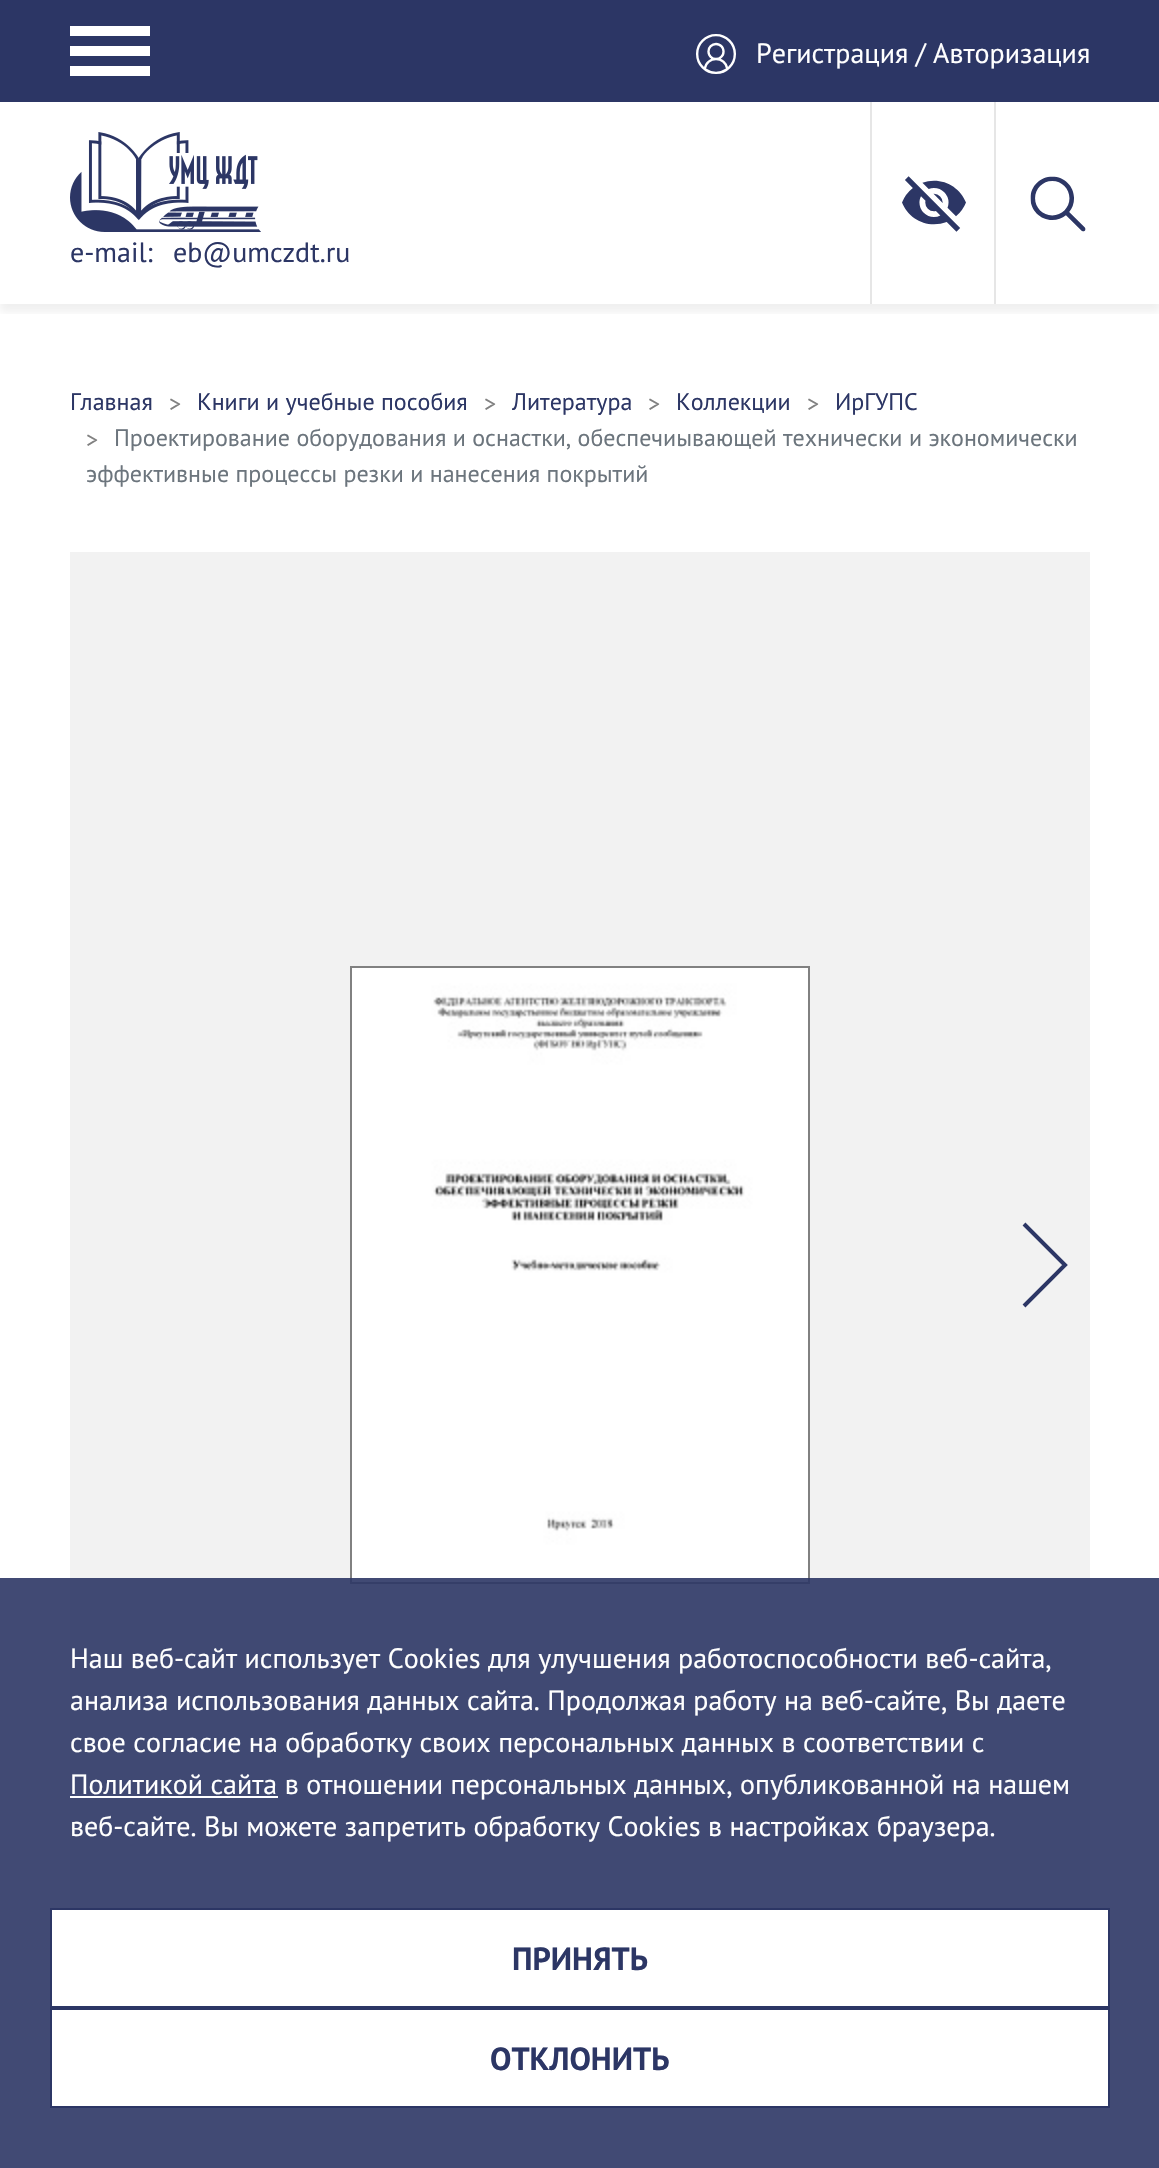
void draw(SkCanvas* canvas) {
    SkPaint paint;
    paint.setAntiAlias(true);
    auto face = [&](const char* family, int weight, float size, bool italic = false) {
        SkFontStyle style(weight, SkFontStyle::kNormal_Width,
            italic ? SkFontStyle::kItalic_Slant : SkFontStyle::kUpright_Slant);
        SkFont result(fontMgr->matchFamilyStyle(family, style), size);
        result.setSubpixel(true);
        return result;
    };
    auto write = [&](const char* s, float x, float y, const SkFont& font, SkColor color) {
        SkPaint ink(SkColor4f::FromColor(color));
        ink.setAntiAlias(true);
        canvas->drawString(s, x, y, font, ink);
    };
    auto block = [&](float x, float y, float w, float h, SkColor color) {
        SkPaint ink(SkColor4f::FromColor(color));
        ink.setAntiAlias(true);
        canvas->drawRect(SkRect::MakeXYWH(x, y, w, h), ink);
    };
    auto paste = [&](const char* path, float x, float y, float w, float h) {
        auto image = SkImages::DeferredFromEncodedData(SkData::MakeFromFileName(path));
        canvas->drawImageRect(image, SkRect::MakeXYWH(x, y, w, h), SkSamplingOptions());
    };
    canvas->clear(SK_ColorWHITE);
    block(0, 0, 1159, 102, SkColorSetRGB(44, 54, 101));
    canvas->save();
    canvas->clipRect(SkRect::MakeXYWH(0, 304, 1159, 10));
    paint.setColor(SkColorSetARGB(15, 0, 0, 0));
    paint.setMaskFilter(SkMaskFilter::MakeBlur(kNormal_SkBlurStyle, 4));
    canvas->drawRect(SkRect::MakeXYWH(0, 10, 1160, 302), paint);
    paint.setMaskFilter(nullptr);
    canvas->restore();
    block(70, 46, 80, 10, SK_ColorWHITE);
    block(70, 26, 80, 10, SK_ColorWHITE);
    block(70, 66, 80, 10, SK_ColorWHITE);
    paste("pic1.png", 696, 34, 40, 40);
    auto kFont1 = face("PT Sans", 400, 28);
    write("Регистрация / Авторизация", 756, 63, kFont1, SK_ColorWHITE);
    paste("pic2.png", 902, 176, 64, 56);
    block(994, 102, 2, 202, SkColorSetRGB(230, 230, 230));
    paste("pic3.png", 1030, 176, 56, 56);
    paste("pic4.png", 70, 132, 191, 100);
    block(870, 102, 2, 202, SkColorSetRGB(230, 230, 230));
    write("e-mail:", 70, 262, kFont1, SkColorSetRGB(44, 54, 101));
    write("eb@umczdt.ru", 173, 262, kFont1, SkColorSetRGB(44, 54, 101));
    auto kFont2 = face("PT Sans", 400, 24);
    write("Главная", 70, 410, kFont2, SkColorSetRGB(44, 54, 101));
    write(">", 169, 412, kFont2, SkColorSetRGB(129, 129, 129));
    write("Книги и учебные пособия", 197, 410, kFont2, SkColorSetRGB(44, 54, 101));
    write(">", 484, 412, kFont2, SkColorSetRGB(129, 129, 129));
    write("Литература", 512, 410, kFont2, SkColorSetRGB(44, 54, 101));
    write(">", 648, 412, kFont2, SkColorSetRGB(129, 129, 129));
    write("Коллекции", 676, 410, kFont2, SkColorSetRGB(44, 54, 101));
    write(">", 807, 412, kFont2, SkColorSetRGB(129, 129, 129));
    write("ИрГУПС", 835, 410, kFont2, SkColorSetRGB(44, 54, 101));
    write(">", 86, 448, kFont2, SkColorSetRGB(129, 129, 129));
    write("Проектирование оборудования и оснастки, обеспечиывающей технически и экономически", 114, 446, kFont2, SkColorSetRGB(108, 117, 125));
    write("эффективные процессы резки и нанесения покрытий", 86, 482, kFont2, SkColorSetRGB(108, 117, 125));
    block(70, 552, 1020, 1356, SkColorSetRGB(242, 242, 242));
    paint.setStyle(SkPaint::kStroke_Style);
    paint.setStrokeWidth(2);
    paint.setColor(SkColorSetRGB(129, 129, 129));
    canvas->drawRect(SkRect::MakeXYWH(351, 967, 458, 616), paint);
    paste("pic5.png", 352, 968, 456, 614);
    paste("pic6.png", 1022, 1222, 46, 86);
    block(0, 1578, 1159, 590, SkColorSetARGB(230, 44, 54, 101));
    write("Наш веб-сайт использует Cookies для улучшения работоспособности веб-сайта,", 70, 1668, kFont1, SK_ColorWHITE);
    write("анализа использования данных сайта. Продолжая работу на веб-сайте, Вы даете", 70, 1710, kFont1, SK_ColorWHITE);
    write("свое согласие на обработку своих персональных данных в соответствии с", 70, 1752, kFont1, SK_ColorWHITE);
    block(70, 1796, 208, 2, SK_ColorWHITE);
    write("Политикой сайта в отношении персональных данных, опубликованной на нашем", 70, 1794, kFont1, SK_ColorWHITE);
    write("веб-сайте. Вы можете запретить обработку Cookies в настройках браузера.", 70, 1836, kFont1, SK_ColorWHITE);
    paint.setStyle(SkPaint::kFill_Style);
    paint.setColor(SK_ColorWHITE);
    canvas->drawRect(SkRect::MakeXYWH(51, 1909, 1058, 98), paint);
    paint.setStyle(SkPaint::kStroke_Style);
    paint.setColor(SkColorSetRGB(44, 54, 101));
    canvas->drawRect(SkRect::MakeXYWH(51, 1909, 1058, 98), paint);
    auto kFont3 = face("PT Sans", 700, 32);
    write("ПРИНЯТЬ", 512, 1970, kFont3, SkColorSetRGB(44, 54, 101));
    paint.setStyle(SkPaint::kFill_Style);
    paint.setColor(SK_ColorWHITE);
    canvas->drawRect(SkRect::MakeXYWH(51, 2009, 1058, 98), paint);
    paint.setStyle(SkPaint::kStroke_Style);
    paint.setColor(SkColorSetRGB(44, 54, 101));
    canvas->drawRect(SkRect::MakeXYWH(51, 2009, 1058, 98), paint);
    write("ОТКЛОНИТЬ", 490, 2070, kFont3, SkColorSetRGB(44, 54, 101));
}
